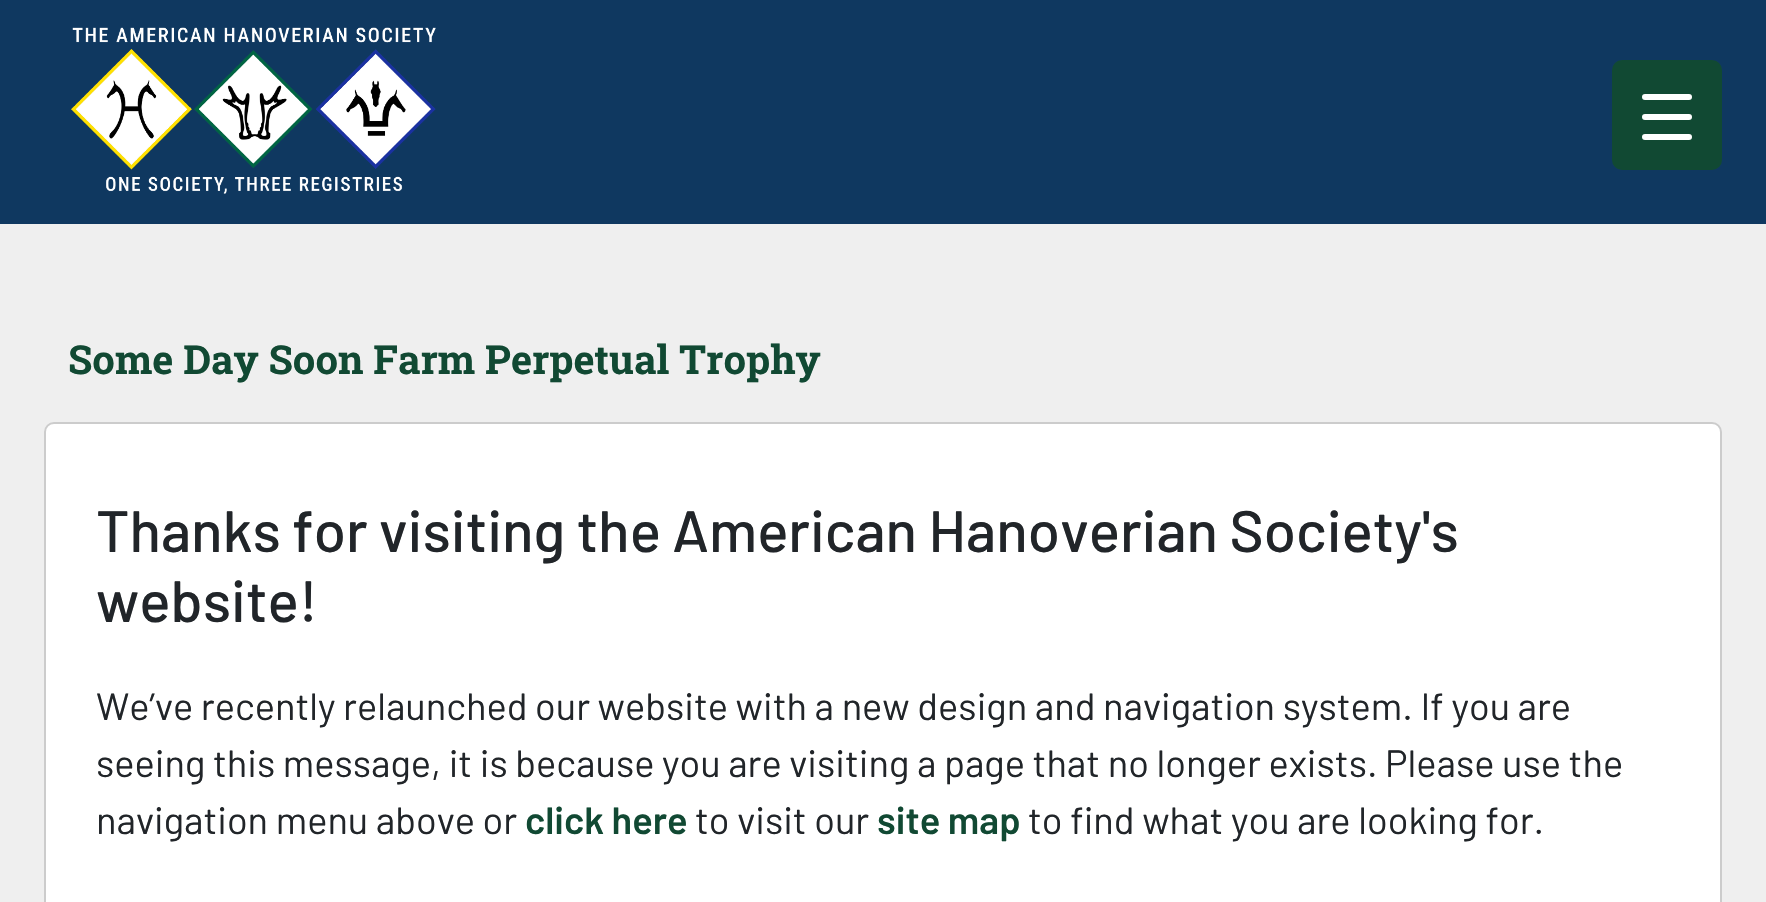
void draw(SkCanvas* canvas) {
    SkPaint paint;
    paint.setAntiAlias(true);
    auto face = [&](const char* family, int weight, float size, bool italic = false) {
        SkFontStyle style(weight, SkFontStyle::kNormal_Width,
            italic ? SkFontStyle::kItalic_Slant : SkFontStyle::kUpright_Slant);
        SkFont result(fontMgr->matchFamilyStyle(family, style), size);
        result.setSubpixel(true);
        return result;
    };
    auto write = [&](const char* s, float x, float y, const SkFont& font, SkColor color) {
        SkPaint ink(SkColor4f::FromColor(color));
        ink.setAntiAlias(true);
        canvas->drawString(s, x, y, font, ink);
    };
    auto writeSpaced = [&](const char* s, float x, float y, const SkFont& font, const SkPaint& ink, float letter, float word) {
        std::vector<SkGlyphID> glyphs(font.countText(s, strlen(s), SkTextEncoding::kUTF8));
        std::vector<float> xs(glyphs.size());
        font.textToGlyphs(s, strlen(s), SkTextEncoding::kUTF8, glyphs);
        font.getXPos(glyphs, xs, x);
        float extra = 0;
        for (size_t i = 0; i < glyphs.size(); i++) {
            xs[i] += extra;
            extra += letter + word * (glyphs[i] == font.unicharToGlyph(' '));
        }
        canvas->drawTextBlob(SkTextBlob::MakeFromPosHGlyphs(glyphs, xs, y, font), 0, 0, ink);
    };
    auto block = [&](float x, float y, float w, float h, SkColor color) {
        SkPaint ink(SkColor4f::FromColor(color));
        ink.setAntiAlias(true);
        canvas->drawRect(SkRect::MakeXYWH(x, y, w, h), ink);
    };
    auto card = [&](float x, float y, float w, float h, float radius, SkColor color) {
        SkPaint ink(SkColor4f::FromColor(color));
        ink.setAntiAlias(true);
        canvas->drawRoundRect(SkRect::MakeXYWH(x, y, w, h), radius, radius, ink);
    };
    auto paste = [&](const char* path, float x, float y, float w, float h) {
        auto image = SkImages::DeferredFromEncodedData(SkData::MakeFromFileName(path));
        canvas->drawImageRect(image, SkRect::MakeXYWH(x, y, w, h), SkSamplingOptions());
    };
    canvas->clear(SkColorSetRGB(239, 239, 239));
    block(0, 0, 1766, 224, SkColorSetRGB(15, 56, 96));
    paste("pic1.png", 71, 27, 365, 167);
    card(1612, 60, 110, 110, 10, SkColorSetRGB(17, 73, 51));
    card(1642, 114, 50, 6, 3, SK_ColorWHITE);
    card(1642, 94, 50, 6, 3, SK_ColorWHITE);
    card(1642, 134, 50, 6, 3, SK_ColorWHITE);
    auto kFont1 = face("Roboto Slab", 700, 40);
    write("Some Day Soon Farm Perpetual Trophy", 68, 374, kFont1, SkColorSetRGB(17, 73, 51));
    paint.setColor(SK_ColorWHITE);
    canvas->drawRoundRect(SkRect::MakeXYWH(45, 423, 1676, 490), 9, 9, paint);
    paint.setStyle(SkPaint::kStroke_Style);
    paint.setStrokeWidth(2);
    paint.setColor(SkColorSetRGB(204, 204, 204));
    canvas->drawRoundRect(SkRect::MakeXYWH(45, 423, 1676, 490), 9, 9, paint);
    auto kFont2 = face("Barlow", 500, 58.25f);
    paint.setStyle(SkPaint::kFill_Style);
    paint.setColor(SkColorSetRGB(33, 37, 41));
    writeSpaced("Thanks for visiting the American Hanoverian Society's", 96, 552, kFont2, paint, 0, -0.25f);
    write("website!", 96, 622, kFont2, SkColorSetRGB(33, 37, 41));
    auto kFont3 = face("Barlow", 400, 38);
    write("We’ve recently relaunched our website with a new design and navigation system. If you are", 96, 720, kFont3, SkColorSetRGB(33, 37, 41));
    write("seeing this message, it is because you are visiting a page that no longer exists. Please use the", 96, 777, kFont3, SkColorSetRGB(33, 37, 41));
    write("navigation menu above or", 96, 834, kFont3, SkColorSetRGB(33, 37, 41));
    auto kFont4 = face("Barlow", 600, 38);
    write("click here", 525, 834, kFont4, SkColorSetRGB(17, 73, 51));
    write("to visit our", 695, 834, kFont3, SkColorSetRGB(33, 37, 41));
    write("site map", 877, 834, kFont4, SkColorSetRGB(17, 73, 51));
    write("to find what you are looking for.", 1028, 834, kFont3, SkColorSetRGB(33, 37, 41));
}
